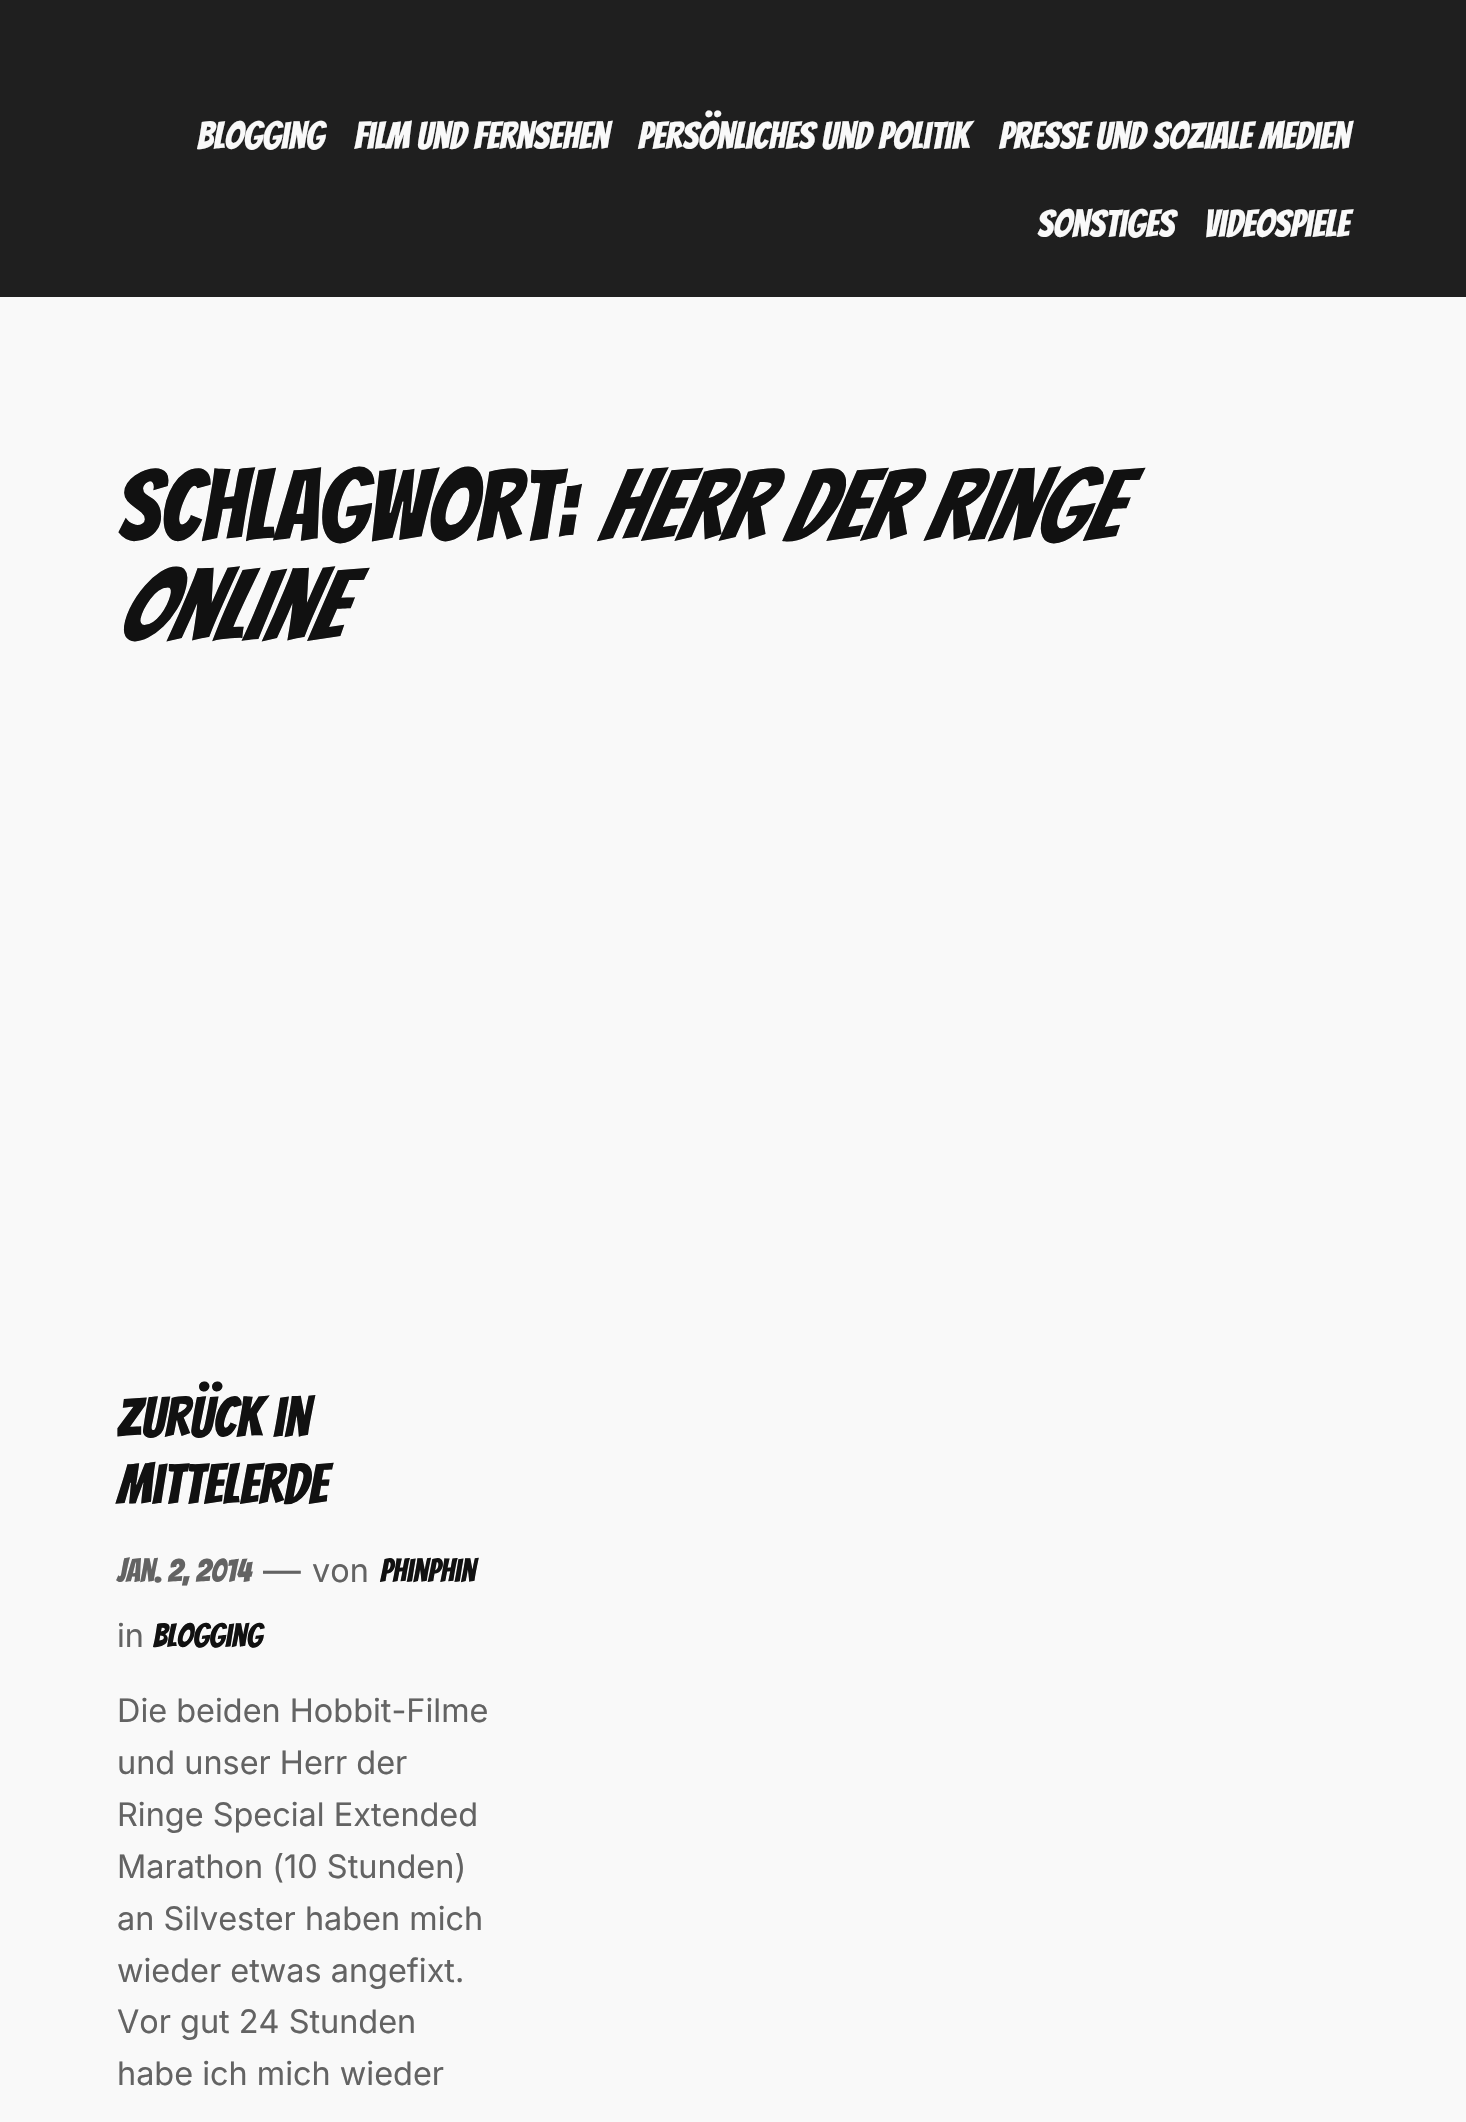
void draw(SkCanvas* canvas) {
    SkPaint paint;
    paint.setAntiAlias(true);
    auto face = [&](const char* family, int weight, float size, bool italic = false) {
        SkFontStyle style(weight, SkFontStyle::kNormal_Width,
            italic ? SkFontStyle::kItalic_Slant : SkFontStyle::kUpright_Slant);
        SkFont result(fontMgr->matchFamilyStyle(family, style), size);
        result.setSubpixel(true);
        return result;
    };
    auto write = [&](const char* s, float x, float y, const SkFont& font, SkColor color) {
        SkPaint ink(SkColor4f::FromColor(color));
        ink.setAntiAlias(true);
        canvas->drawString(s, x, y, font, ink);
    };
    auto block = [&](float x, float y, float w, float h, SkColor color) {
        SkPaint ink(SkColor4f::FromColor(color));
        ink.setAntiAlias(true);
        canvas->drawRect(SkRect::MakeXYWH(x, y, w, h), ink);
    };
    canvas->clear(SkColorSetRGB(249, 249, 249));
    block(0, 0, 1466, 297, SkColorSetRGB(31, 31, 31));
    auto kFont1 = face("Bangers", 400, 37.75f);
    write("Blogging", 197, 149, kFont1, SkColorSetRGB(249, 249, 249));
    write("Film und Fernsehen", 354, 149, kFont1, SkColorSetRGB(249, 249, 249));
    write("Persönliches und Politik", 638, 149, kFont1, SkColorSetRGB(249, 249, 249));
    write("Presse und Soziale Medien", 999, 149, kFont1, SkColorSetRGB(249, 249, 249));
    write("Sonstiges", 1037, 237, kFont1, SkColorSetRGB(249, 249, 249));
    write("Videospiele", 1204, 237, kFont1, SkColorSetRGB(249, 249, 249));
    auto kFont2 = face("Bangers", 400, 99.5f);
    write("Schlagwort:", 117, 541, kFont2, SkColorSetRGB(17, 17, 17));
    auto kFont3 = face("Bangers", 400, 99.5f, true);
    write("Herr der Ringe", 596, 541, kFont3, SkColorSetRGB(17, 17, 17));
    write("Online", 117, 641, kFont3, SkColorSetRGB(17, 17, 17));
    auto kFont4 = face("Bangers", 400, 56);
    write("Zurück in", 117, 1437, kFont4, SkColorSetRGB(17, 17, 17));
    write("Mittelerde", 117, 1504, kFont4, SkColorSetRGB(17, 17, 17));
    auto kFont5 = face("Bangers", 400, 32.4f);
    write("Jan. 2, 2014", 117, 1582, kFont5, SkColorSetRGB(99, 99, 99));
    auto kFont6 = face("Inter", 400, 37.75f);
    write("—", 263, 1584, kFont6, SkColorSetRGB(99, 99, 99));
    auto kFont7 = face("Inter", 400, 32.4f);
    write("von", 312, 1582, kFont7, SkColorSetRGB(99, 99, 99));
    write("Phinphin", 380, 1582, kFont5, SkColorSetRGB(17, 17, 17));
    write("in", 117, 1647, kFont7, SkColorSetRGB(99, 99, 99));
    write("Blogging", 153, 1647, kFont5, SkColorSetRGB(17, 17, 17));
    write("Die beiden Hobbit-Filme", 117, 1722, kFont7, SkColorSetRGB(99, 99, 99));
    write("und unser Herr der", 117, 1774, kFont7, SkColorSetRGB(99, 99, 99));
    write("Ringe Special Extended", 117, 1826, kFont7, SkColorSetRGB(99, 99, 99));
    write("Marathon (10 Stunden)", 117, 1878, kFont7, SkColorSetRGB(99, 99, 99));
    write("an Silvester haben mich", 117, 1930, kFont7, SkColorSetRGB(99, 99, 99));
    write("wieder etwas angefixt.", 117, 1982, kFont7, SkColorSetRGB(99, 99, 99));
    write("Vor gut 24 Stunden", 117, 2033, kFont7, SkColorSetRGB(99, 99, 99));
    write("habe ich mich wieder", 117, 2085, kFont7, SkColorSetRGB(99, 99, 99));
}
